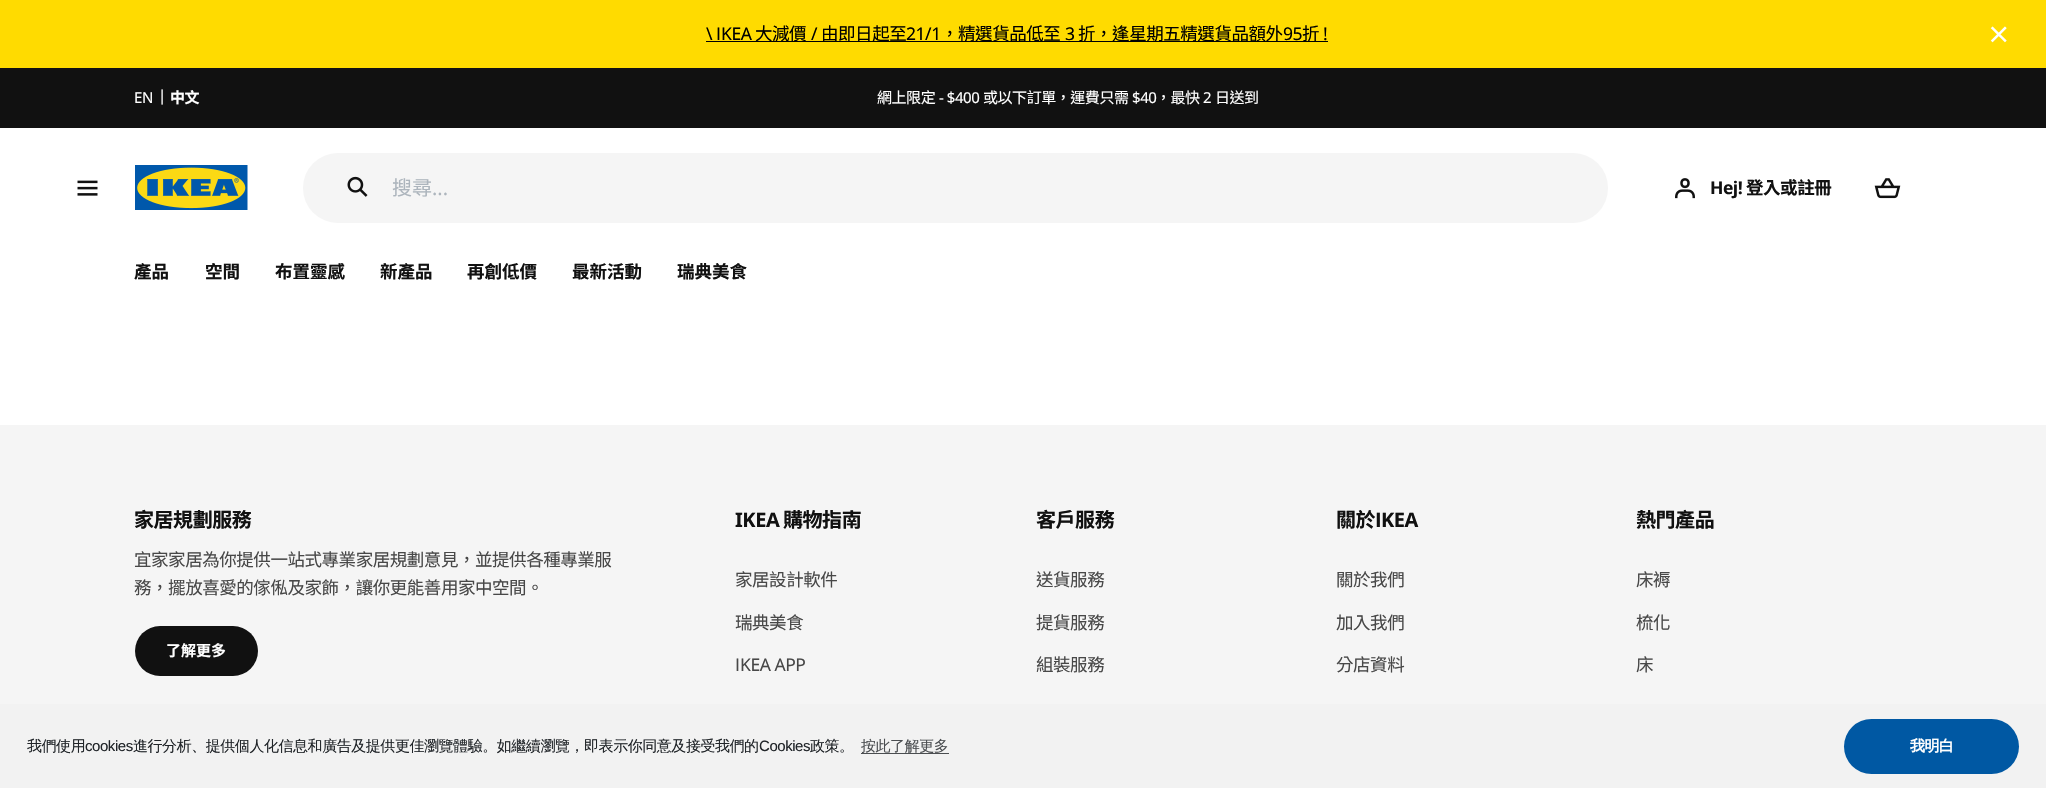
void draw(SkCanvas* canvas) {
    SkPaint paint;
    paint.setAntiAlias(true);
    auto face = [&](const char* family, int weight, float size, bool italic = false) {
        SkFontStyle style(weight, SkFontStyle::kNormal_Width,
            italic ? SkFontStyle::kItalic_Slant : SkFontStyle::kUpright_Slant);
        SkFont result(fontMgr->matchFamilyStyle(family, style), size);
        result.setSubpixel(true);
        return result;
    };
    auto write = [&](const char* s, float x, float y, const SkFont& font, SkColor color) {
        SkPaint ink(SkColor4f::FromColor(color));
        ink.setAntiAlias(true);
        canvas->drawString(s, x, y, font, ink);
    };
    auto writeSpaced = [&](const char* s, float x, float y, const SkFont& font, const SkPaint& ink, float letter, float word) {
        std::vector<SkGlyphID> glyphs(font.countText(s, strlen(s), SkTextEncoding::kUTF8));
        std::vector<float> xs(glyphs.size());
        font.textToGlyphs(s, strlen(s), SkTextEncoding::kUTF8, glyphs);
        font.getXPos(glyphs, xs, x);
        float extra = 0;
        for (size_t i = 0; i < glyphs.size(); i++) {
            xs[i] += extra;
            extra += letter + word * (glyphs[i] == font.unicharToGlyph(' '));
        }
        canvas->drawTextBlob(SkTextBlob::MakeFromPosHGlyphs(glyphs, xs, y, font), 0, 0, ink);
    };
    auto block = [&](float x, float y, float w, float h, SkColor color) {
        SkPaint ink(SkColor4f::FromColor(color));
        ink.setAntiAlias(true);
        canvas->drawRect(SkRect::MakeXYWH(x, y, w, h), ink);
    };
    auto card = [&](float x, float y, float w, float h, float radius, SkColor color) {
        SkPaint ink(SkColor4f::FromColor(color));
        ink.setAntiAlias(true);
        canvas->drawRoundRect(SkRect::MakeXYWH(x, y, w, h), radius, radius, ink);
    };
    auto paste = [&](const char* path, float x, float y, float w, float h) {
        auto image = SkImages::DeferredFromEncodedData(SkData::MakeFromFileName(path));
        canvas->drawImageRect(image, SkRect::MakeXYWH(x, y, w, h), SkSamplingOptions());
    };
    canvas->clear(SK_ColorWHITE);
    block(0, 0, 2046, 68, SkColorSetRGB(255, 219, 0));
    auto kFont1 = face("Noto Sans", 400, 17.5f);
    paint.setColor(SK_ColorBLACK);
    writeSpaced("\\", 706, 40, kFont1, paint, -0.45f, 0);
    auto kFont2 = face("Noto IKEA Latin", 400, 17.5f);
    writeSpaced("I", 716, 40, kFont2, paint, -0.45f, 0);
    writeSpaced("KEA", 721, 40, kFont1, paint, -0.45f, 0);
    block(706, 41, 622, 1, SK_ColorBLACK);
    auto kFont3 = face("Noto Sans TC", 400, 17.5f);
    writeSpaced("大減價", 755, 40, kFont3, paint, -0.45f, 0);
    writeSpaced("/", 811, 40, kFont1, paint, -0.45f, 0);
    writeSpaced("由即日起至", 821, 40, kFont3, paint, -0.45f, 0);
    writeSpaced("21/1", 906, 40, kFont1, paint, -0.45f, 0);
    writeSpaced("，精選貨品低至", 941, 40, kFont3, paint, -0.45f, 0);
    writeSpaced("3", 1065, 40, kFont1, paint, -0.45f, 0);
    writeSpaced("折，逢星期五精選貨品額外", 1078, 40, kFont3, paint, -0.45f, 0);
    writeSpaced("95", 1283, 40, kFont1, paint, -0.45f, 0);
    writeSpaced("折", 1302, 40, kFont3, paint, -0.45f, 0);
    writeSpaced("!", 1323, 40, kFont1, paint, -0.45f, 0);
    paste("pic1.png", 1990, 26, 17, 17);
    block(0, 68, 2046, 60, SkColorSetRGB(17, 17, 17));
    auto kFont4 = face("Noto Sans", 400, 15);
    paint.setColor(SK_ColorWHITE);
    writeSpaced("EN", 134, 103, kFont4, paint, -0.45f, 0);
    writeSpaced("|", 158, 101, kFont4, paint, -0.45f, 0);
    auto kFont5 = face("Noto Sans TC", 700, 15);
    writeSpaced("中文", 170, 103, kFont5, paint, -0.45f, 0);
    auto kFont6 = face("Noto Sans TC", 400, 15);
    writeSpaced("網上限定", 877, 103, kFont6, paint, -0.45f, 0);
    writeSpaced("- $400", 939, 103, kFont4, paint, -0.45f, 0);
    writeSpaced("或以下訂單，運費只需", 983, 103, kFont6, paint, -0.45f, 0);
    writeSpaced("$40", 1132, 103, kFont4, paint, -0.45f, 0);
    writeSpaced("，最快", 1156, 103, kFont6, paint, -0.45f, 0);
    writeSpaced("2", 1203, 103, kFont4, paint, -0.45f, 0);
    writeSpaced("日送到", 1215, 103, kFont6, paint, -0.45f, 0);
    paste("pic2.png", 77, 180, 21, 16);
    paste("pic3.png", 135, 165, 113, 45);
    card(303, 153, 1305, 70, 35, SkColorSetRGB(245, 245, 245));
    paste("pic4.png", 347, 176, 21, 21);
    auto kFont7 = face("Noto Sans TC", 400, 20);
    write("搜尋", 392, 195, kFont7, SkColorSetRGB(173, 181, 189));
    auto kFont8 = face("Noto Sans", 400, 20);
    write("...", 432, 195, kFont8, SkColorSetRGB(173, 181, 189));
    paste("pic5.png", 1675, 178, 20, 21);
    auto kFont9 = face("Noto Sans", 700, 17.5f);
    paint.setColor(SkColorSetRGB(17, 17, 17));
    writeSpaced("Hej!", 1710, 194, kFont9, paint, -0.45f, 0);
    auto kFont10 = face("Noto Sans TC", 700, 17.5f);
    writeSpaced("登入或註冊", 1746, 194, kFont10, paint, -0.45f, 0);
    paste("pic6.png", 1874, 178, 27, 21);
    write("產品", 134, 278, kFont10, SkColorSetRGB(17, 17, 17));
    write("空間", 205, 278, kFont10, SkColorSetRGB(17, 17, 17));
    write("布置靈感", 275, 278, kFont10, SkColorSetRGB(17, 17, 17));
    write("新產品", 380, 278, kFont10, SkColorSetRGB(17, 17, 17));
    write("再創低價", 467, 278, kFont10, SkColorSetRGB(17, 17, 17));
    write("最新活動", 572, 278, kFont10, SkColorSetRGB(17, 17, 17));
    write("瑞典美食", 677, 278, kFont10, SkColorSetRGB(17, 17, 17));
    block(0, 425, 2046, 279, SkColorSetRGB(245, 245, 245));
    auto kFont11 = face("Noto Sans TC", 700, 20);
    writeSpaced("家居規劃服務", 134, 527, kFont11, paint, -0.45f, 0);
    paint.setColor(SkColorSetRGB(72, 72, 72));
    writeSpaced("宜家家居為你提供一站式專業家居規劃意見，並提供各種專業服", 134, 566, kFont3, paint, -0.45f, 0);
    writeSpaced("務，擺放喜愛的傢俬及家飾，讓你更能善用家中空間。", 134, 594, kFont3, paint, -0.45f, 0);
    card(135, 626, 123, 50, 25, SkColorSetRGB(17, 17, 17));
    write("了解更多", 166, 656, kFont5, SK_ColorWHITE);
    auto kFont12 = face("Noto Sans", 700, 20);
    paint.setColor(SkColorSetRGB(17, 17, 17));
    writeSpaced("IKEA", 735, 527, kFont12, paint, -0.45f, 0);
    writeSpaced("購物指南", 783, 527, kFont11, paint, -0.45f, 0);
    paint.setColor(SkColorSetRGB(72, 72, 72));
    writeSpaced("家居設計軟件", 735, 586, kFont3, paint, -0.45f, 0);
    writeSpaced("瑞典美食", 735, 629, kFont3, paint, -0.45f, 0);
    writeSpaced("I", 735, 671, kFont2, paint, -0.45f, 0);
    writeSpaced("KEA APP", 740, 671, kFont1, paint, -0.45f, 0);
    paint.setColor(SkColorSetRGB(17, 17, 17));
    writeSpaced("客戶服務", 1036, 527, kFont11, paint, -0.45f, 0);
    paint.setColor(SkColorSetRGB(72, 72, 72));
    writeSpaced("送貨服務", 1036, 586, kFont3, paint, -0.45f, 0);
    writeSpaced("提貨服務", 1036, 629, kFont3, paint, -0.45f, 0);
    writeSpaced("組裝服務", 1036, 671, kFont3, paint, -0.45f, 0);
    paint.setColor(SkColorSetRGB(17, 17, 17));
    writeSpaced("關於", 1336, 527, kFont11, paint, -0.45f, 0);
    auto kFont13 = face("Noto IKEA Latin", 600, 20);
    writeSpaced("I", 1375, 527, kFont13, paint, -0.45f, 0);
    writeSpaced("KEA", 1381, 527, kFont12, paint, -0.45f, 0);
    paint.setColor(SkColorSetRGB(72, 72, 72));
    writeSpaced("關於我們", 1336, 586, kFont3, paint, -0.45f, 0);
    writeSpaced("加入我們", 1336, 629, kFont3, paint, -0.45f, 0);
    writeSpaced("分店資料", 1336, 671, kFont3, paint, -0.45f, 0);
    paint.setColor(SkColorSetRGB(17, 17, 17));
    writeSpaced("熱門產品", 1636, 527, kFont11, paint, -0.45f, 0);
    paint.setColor(SkColorSetRGB(72, 72, 72));
    writeSpaced("床褥", 1636, 586, kFont3, paint, -0.45f, 0);
    writeSpaced("梳化", 1636, 629, kFont3, paint, -0.45f, 0);
    writeSpaced("床", 1636, 671, kFont3, paint, -0.45f, 0);
    block(0, 704, 2046, 84, SkColorSetRGB(242, 242, 242));
    auto kFont14 = face("WenQuanYi Zen Hei", 500, 15);
    paint.setColor(SkColorSetRGB(33, 37, 41));
    writeSpaced("我們使用", 27, 751, kFont14, paint, -0.45f, 0);
    auto kFont15 = face("Liberation Sans", 400, 15);
    writeSpaced("cookies", 85, 751, kFont15, paint, -0.45f, 0);
    writeSpaced("進行分析、提供個人化信息和廣告及提供更佳瀏覽體驗。如繼續瀏覽，即表示你同意及接受我們的", 133, 751, kFont14, paint, -0.45f, 0);
    writeSpaced("Cookies", 759, 751, kFont15, paint, -0.45f, 0);
    writeSpaced("政策。", 810, 751, kFont14, paint, -0.45f, 0);
    block(861, 753, 88, 1, SkColorSetRGB(75, 78, 81));
    paint.setColor(SkColorSetRGB(75, 78, 81));
    writeSpaced("按此了解更多", 861, 751, kFont14, paint, -0.45f, 0);
    card(1844, 719, 175, 55, 27.5f, SkColorSetRGB(0, 88, 163));
    auto kFont16 = face("WenQuanYi Zen Hei", 700, 15);
    paint.setColor(SK_ColorWHITE);
    writeSpaced("我明白", 1910, 751, kFont16, paint, -0.45f, 0);
}
